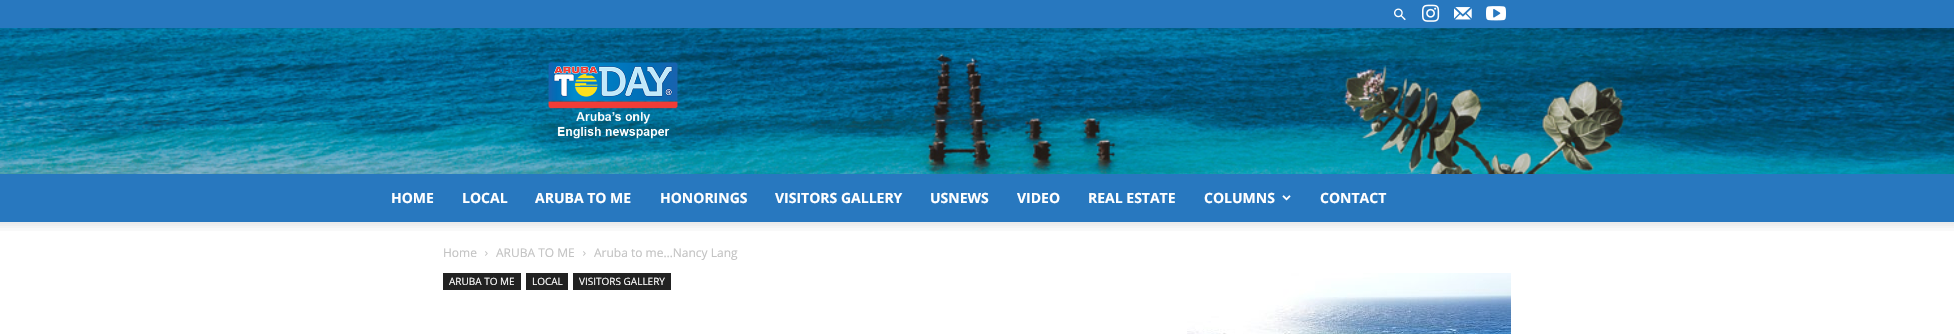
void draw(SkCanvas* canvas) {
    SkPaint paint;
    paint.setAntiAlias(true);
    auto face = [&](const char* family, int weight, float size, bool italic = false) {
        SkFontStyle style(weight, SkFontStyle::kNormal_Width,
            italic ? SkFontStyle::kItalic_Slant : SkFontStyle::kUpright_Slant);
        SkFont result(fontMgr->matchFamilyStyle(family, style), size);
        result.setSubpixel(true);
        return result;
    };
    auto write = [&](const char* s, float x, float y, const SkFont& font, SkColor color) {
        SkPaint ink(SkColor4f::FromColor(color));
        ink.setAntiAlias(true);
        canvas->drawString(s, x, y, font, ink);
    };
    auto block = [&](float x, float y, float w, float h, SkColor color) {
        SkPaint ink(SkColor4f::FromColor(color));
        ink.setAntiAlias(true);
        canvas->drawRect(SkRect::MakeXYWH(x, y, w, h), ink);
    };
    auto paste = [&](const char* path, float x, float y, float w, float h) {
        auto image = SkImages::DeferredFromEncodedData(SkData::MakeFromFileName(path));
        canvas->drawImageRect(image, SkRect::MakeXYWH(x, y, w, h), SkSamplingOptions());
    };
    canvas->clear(SK_ColorWHITE);
    block(0, 0, 1954, 28, SkColorSetRGB(40, 120, 191));
    paste("pic1.png", 1394, 8, 12, 13);
    paste("pic2.png", 1422, 4, 18, 18);
    paste("pic3.png", 1454, 7, 18, 13);
    paste("pic4.png", 1486, 6, 20, 15);
    paste("pic5.png", 0, 28, 1954, 146);
    paste("pic6.png", 548, 62, 130, 77);
    block(0, 174, 1954, 48, SkColorSetRGB(40, 120, 191));
    auto kFont1 = face("Open Sans", 700, 14);
    write("HOME", 391, 203, kFont1, SK_ColorWHITE);
    write("LOCAL", 462, 203, kFont1, SK_ColorWHITE);
    write("ARUBA TO ME", 535, 203, kFont1, SK_ColorWHITE);
    write("HONORINGS", 660, 203, kFont1, SK_ColorWHITE);
    write("VISITORS GALLERY", 775, 203, kFont1, SK_ColorWHITE);
    write("USNEWS", 930, 203, kFont1, SK_ColorWHITE);
    write("VIDEO", 1017, 203, kFont1, SK_ColorWHITE);
    write("REAL ESTATE", 1088, 203, kFont1, SK_ColorWHITE);
    write("COLUMNS", 1204, 203, kFont1, SK_ColorWHITE);
    paste("pic7.png", 1282, 195, 9, 6);
    write("CONTACT", 1320, 203, kFont1, SK_ColorWHITE);
    paste("pic8.png", 0, 222, 1954, 9);
    auto kFont2 = face("Open Sans", 400, 12);
    write("Home", 443, 257, kFont2, SkColorSetRGB(195, 195, 195));
    paste("pic9.png", 485, 251, 3, 5);
    write("ARUBA TO ME", 496, 257, kFont2, SkColorSetRGB(195, 195, 195));
    paste("pic9.png", 583, 251, 3, 5);
    write("Aruba to me…Nancy Lang", 594, 257, kFont2, SkColorSetRGB(195, 195, 195));
    block(443, 273, 78, 17, SkColorSetRGB(34, 34, 34));
    auto kFont3 = face("Open Sans", 400, 10);
    write("ARUBA TO ME", 449, 285, kFont3, SK_ColorWHITE);
    block(526, 273, 42, 17, SkColorSetRGB(34, 34, 34));
    write("LOCAL", 532, 285, kFont3, SK_ColorWHITE);
    block(573, 273, 98, 17, SkColorSetRGB(34, 34, 34));
    write("VISITORS GALLERY", 579, 285, kFont3, SK_ColorWHITE);
    paste("pic10.png", 1187, 273, 324, 61);
}
